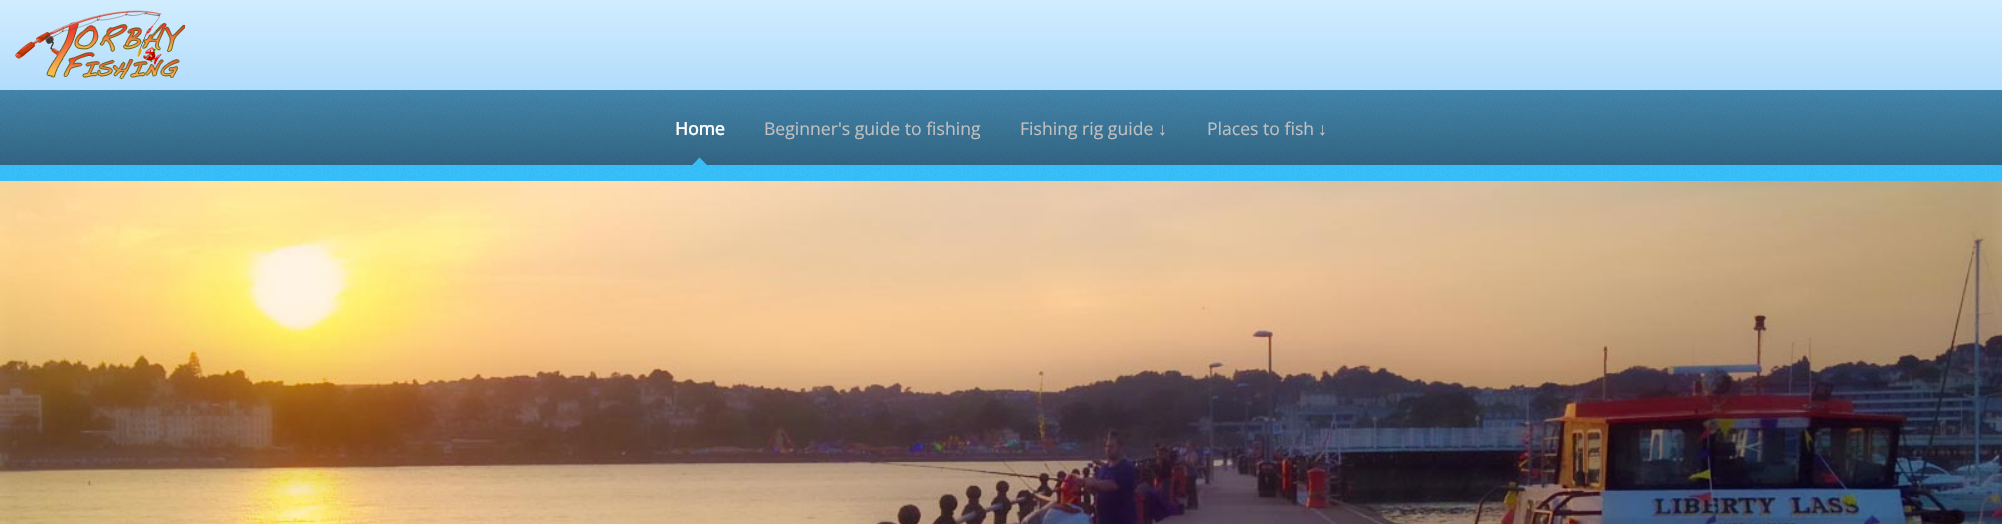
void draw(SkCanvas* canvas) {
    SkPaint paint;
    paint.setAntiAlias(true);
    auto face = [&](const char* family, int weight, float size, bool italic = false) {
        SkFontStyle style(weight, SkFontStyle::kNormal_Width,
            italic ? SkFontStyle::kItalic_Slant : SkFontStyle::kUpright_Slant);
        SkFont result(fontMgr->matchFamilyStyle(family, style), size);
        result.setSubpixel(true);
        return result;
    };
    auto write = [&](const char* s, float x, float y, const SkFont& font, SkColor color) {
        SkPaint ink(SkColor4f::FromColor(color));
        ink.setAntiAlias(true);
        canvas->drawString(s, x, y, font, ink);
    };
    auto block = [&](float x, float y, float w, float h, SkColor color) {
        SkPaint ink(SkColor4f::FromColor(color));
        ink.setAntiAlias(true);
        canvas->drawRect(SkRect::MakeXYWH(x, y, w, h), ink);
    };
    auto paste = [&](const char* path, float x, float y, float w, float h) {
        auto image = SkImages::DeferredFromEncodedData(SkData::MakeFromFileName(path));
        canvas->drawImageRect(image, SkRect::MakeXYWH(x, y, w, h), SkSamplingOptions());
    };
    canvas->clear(SK_ColorWHITE);
    {
        const SkColor colors[] = {SkColorSetRGB(209, 237, 255), SkColorSetRGB(147, 202, 249)};
        const float stops[] = {0, 1};
        const SkPoint ends[] = {{1001, 0}, {1001, 181}};
        paint.setShader(SkGradientShader::MakeLinear(ends, colors, stops, 2, SkTileMode::kClamp));
        paint.setAlpha(255);
    }
    canvas->drawRect(SkRect::MakeXYWH(0, 0, 2002, 90), paint);
    paste("pic1.png", 15, 10, 170, 70);
    block(0, 90, 2002, 75, SkColorSetRGB(67, 134, 173));
    paste("pic2.png", 0, 90, 2002, 75);
    auto kFont1 = face("Open Sans", 700, 17.6f);
    write("Home", 675, 135, kFont1, SK_ColorWHITE);
    block(0, 165, 2002, 16, SkColorSetRGB(55, 192, 251));
    paste("pic4.png", 0, 165, 2002, 16);
    paint.setShader(nullptr);
    paint.setColor(SkColorSetRGB(55, 192, 251));
    canvas->drawPath(SkPathBuilder().moveTo(699.5f, 157.5f).lineTo(709, 167).lineTo(699.5f, 176.5f).lineTo(690.5f, 167).close().detach(), paint);
    paste("pic3.png", 691, 158, 17, 15);
    auto kFont2 = face("Open Sans", 400, 17.6f);
    write("Beginner's guide to fishing", 764, 135, kFont2, SkColorSetRGB(192, 192, 192));
    write("Fishing rig guide", 1020, 135, kFont2, SkColorSetRGB(192, 192, 192));
    auto kFont3 = face("Liberation Sans", 400, 17.6f);
    write("↓", 1158, 135, kFont3, SkColorSetRGB(192, 192, 192));
    write("Places to fish", 1207, 135, kFont2, SkColorSetRGB(192, 192, 192));
    write("↓", 1318, 135, kFont3, SkColorSetRGB(192, 192, 192));
    paste("pic5.png", 0, 181, 2002, 343);
}
